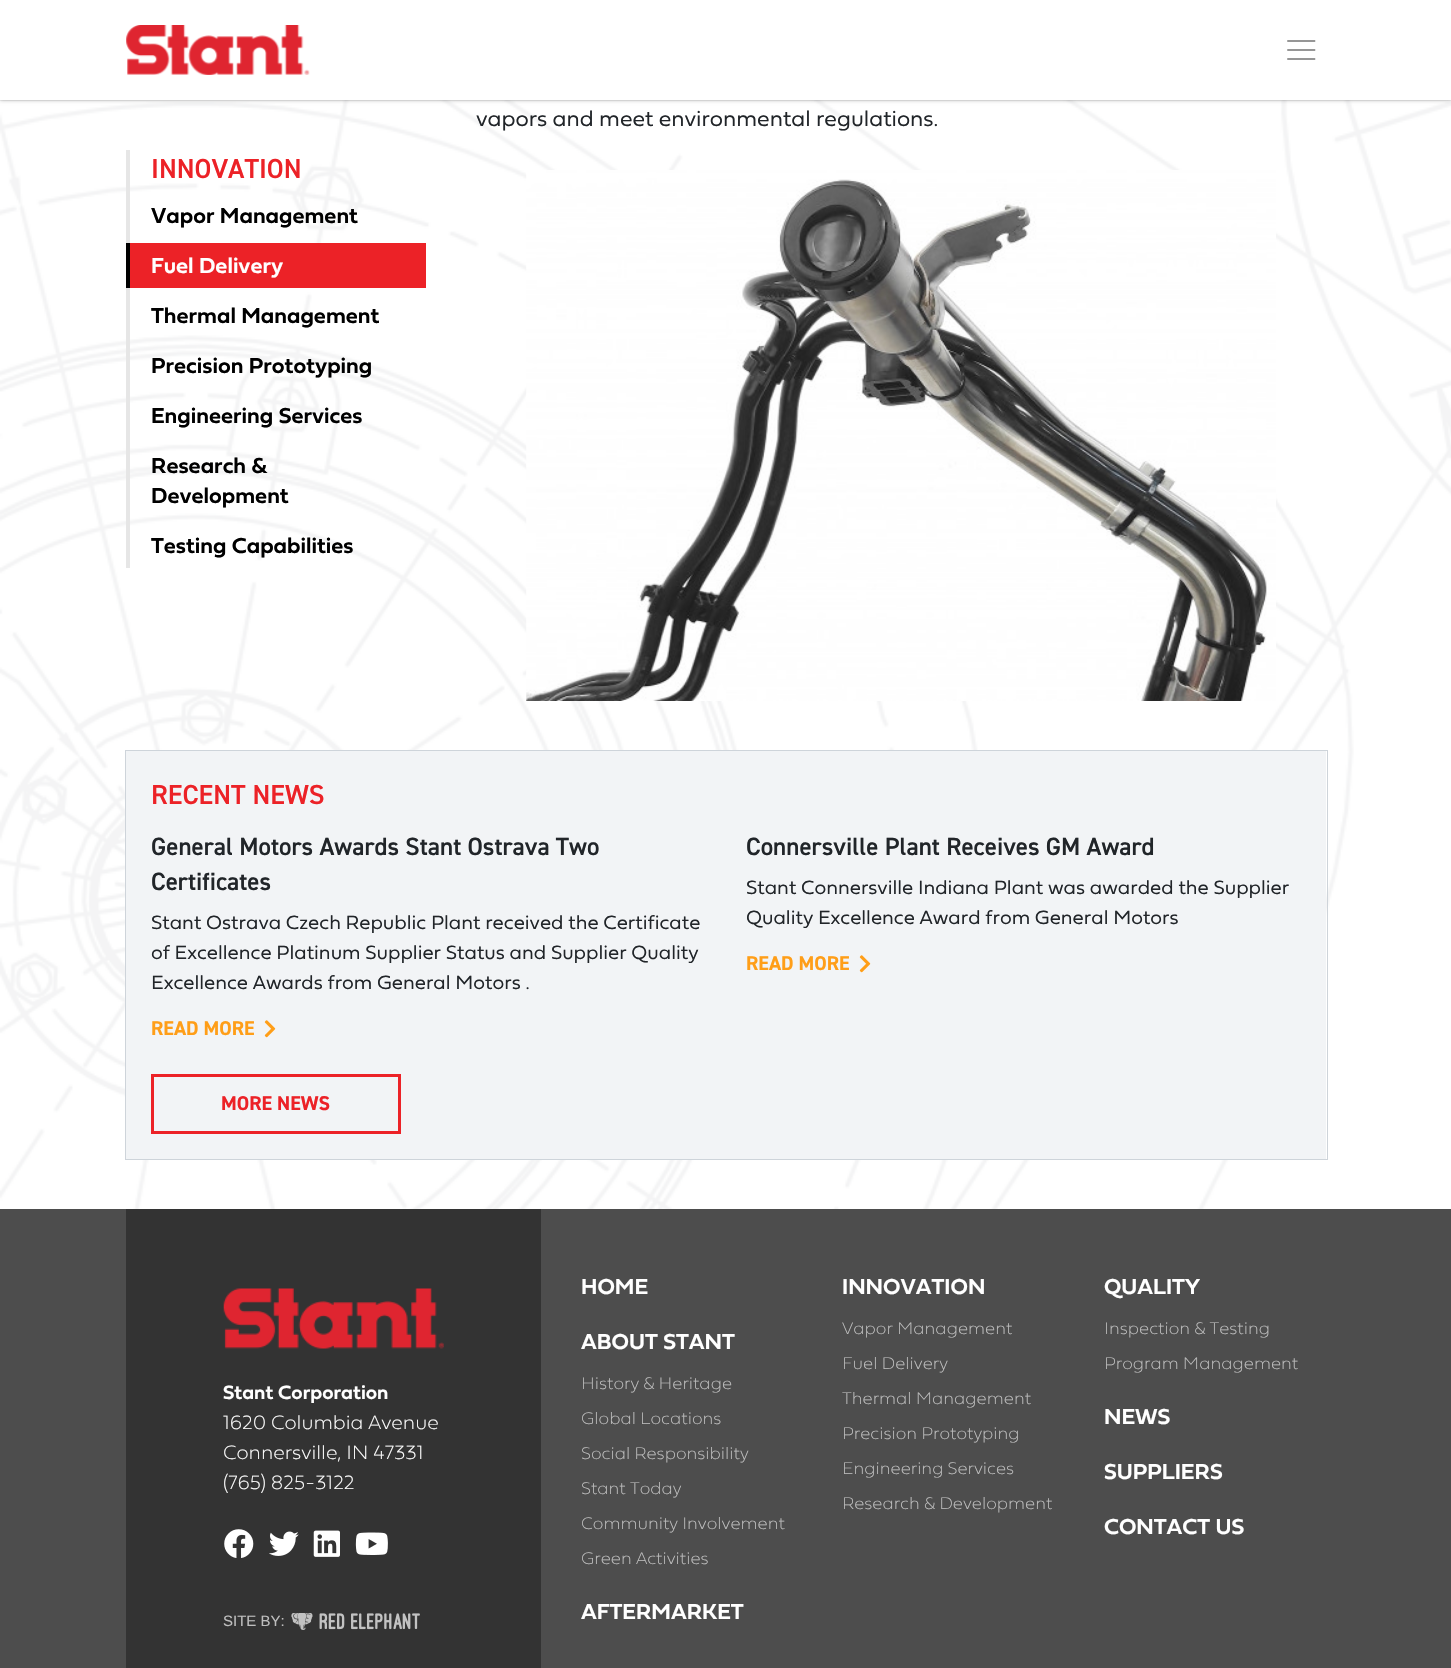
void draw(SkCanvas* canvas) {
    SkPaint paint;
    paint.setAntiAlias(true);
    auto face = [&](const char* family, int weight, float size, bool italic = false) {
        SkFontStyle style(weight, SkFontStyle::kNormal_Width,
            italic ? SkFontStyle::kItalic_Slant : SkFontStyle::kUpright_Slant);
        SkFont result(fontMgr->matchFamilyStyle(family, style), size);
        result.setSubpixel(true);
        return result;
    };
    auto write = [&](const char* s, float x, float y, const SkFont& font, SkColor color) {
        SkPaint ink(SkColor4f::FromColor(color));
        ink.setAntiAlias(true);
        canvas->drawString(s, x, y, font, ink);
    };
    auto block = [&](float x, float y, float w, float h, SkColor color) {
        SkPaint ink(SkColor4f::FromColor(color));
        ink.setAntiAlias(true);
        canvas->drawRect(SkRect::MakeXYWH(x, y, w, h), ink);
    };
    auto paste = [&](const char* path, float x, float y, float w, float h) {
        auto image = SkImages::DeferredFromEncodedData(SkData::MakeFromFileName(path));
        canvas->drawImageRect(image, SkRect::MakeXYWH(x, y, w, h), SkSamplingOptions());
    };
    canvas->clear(SK_ColorWHITE);
    paste("pic1.png", 0, 100, 1451, 1109);
    paint.setColor(SkColorSetARGB(77, 0, 0, 0));
    paint.setMaskFilter(SkMaskFilter::MakeBlur(kNormal_SkBlurStyle, 2));
    canvas->drawRect(SkRect::MakeXYWH(0, 0, 1451, 100), paint);
    paint.setMaskFilter(nullptr);
    block(0, 100, 1451, 1, SkColorSetARGB(13, 0, 0, 0));
    block(0, 0, 1451, 100, SK_ColorWHITE);
    paste("pic2.png", 126, 25, 184, 50);
    paste("pic3.png", 1287, 40, 29, 20);
    auto kFont1 = face("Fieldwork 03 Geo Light", 300, 22.5f);
    write("vapors and meet environmental regulations.", 476, 126, kFont1, SkColorSetRGB(33, 37, 41));
    paste("pic4.png", 526, 170, 750, 531);
    block(126, 150, 4, 418, SkColorSetRGB(230, 230, 230));
    auto kFont2 = face("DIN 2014", 600, 27.5f);
    write("INNOVATION", 151, 178, kFont2, SkColorSetRGB(236, 34, 39));
    auto kFont3 = face("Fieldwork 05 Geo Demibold", 600, 22.5f);
    write("Vapor Management", 151, 223, kFont3, SK_ColorBLACK);
    block(130, 243, 296, 45, SkColorSetRGB(236, 34, 39));
    block(126, 243, 4, 45, SK_ColorBLACK);
    write("Fuel Delivery", 151, 273, kFont3, SK_ColorWHITE);
    write("Thermal Management", 151, 323, kFont3, SK_ColorBLACK);
    write("Precision Prototyping", 151, 373, kFont3, SK_ColorBLACK);
    write("Engineering Services", 151, 423, kFont3, SK_ColorBLACK);
    write("Research &", 151, 473, kFont3, SK_ColorBLACK);
    write("Development", 151, 503, kFont3, SK_ColorBLACK);
    write("Testing Capabilities", 151, 553, kFont3, SK_ColorBLACK);
    paint.setStyle(SkPaint::kStroke_Style);
    paint.setStrokeWidth(1);
    paint.setColor(SkColorSetRGB(206, 212, 218));
    canvas->drawRect(SkRect::MakeXYWH(125.5f, 750.5f, 1202, 409), paint);
    block(126, 751, 1200, 408, SkColorSetRGB(242, 244, 246));
    write("RECENT NEWS", 151, 804, kFont2, SkColorSetRGB(236, 34, 39));
    auto kFont4 = face("DIN 2014", 600, 25);
    write("General Motors Awards Stant Ostrava Two", 151, 855, kFont4, SkColorSetRGB(33, 37, 41));
    write("Certificates", 151, 890, kFont4, SkColorSetRGB(33, 37, 41));
    auto kFont5 = face("Fieldwork 03 Geo Light", 300, 20);
    write("Stant Ostrava Czech Republic Plant received the Certificate", 151, 929, kFont5, SkColorSetRGB(33, 37, 41));
    write("of Excellence Platinum Supplier Status and Supplier Quality", 151, 959, kFont5, SkColorSetRGB(33, 37, 41));
    write("Excellence Awards from General Motors .", 151, 989, kFont5, SkColorSetRGB(33, 37, 41));
    auto kFont6 = face("DIN 2014", 700, 20);
    write("READ MORE", 151, 1035, kFont6, SkColorSetRGB(255, 158, 24));
    paste("pic5.png", 264, 1020, 12, 18);
    write("Connersville Plant Receives GM Award", 746, 855, kFont4, SkColorSetRGB(33, 37, 41));
    write("Stant Connersville Indiana Plant was awarded the Supplier", 746, 894, kFont5, SkColorSetRGB(33, 37, 41));
    write("Quality Excellence Award from General Motors", 746, 924, kFont5, SkColorSetRGB(33, 37, 41));
    write("READ MORE", 746, 970, kFont6, SkColorSetRGB(255, 158, 24));
    paste("pic5.png", 859, 955, 12, 18);
    paint.setStrokeWidth(3);
    paint.setColor(SkColorSetRGB(236, 34, 39));
    canvas->drawRect(SkRect::MakeXYWH(152.5f, 1075.5f, 247, 57), paint);
    write("MORE NEWS", 221, 1110, kFont6, SkColorSetRGB(236, 34, 39));
    block(0, 1209, 1451, 459, SkColorSetRGB(77, 77, 77));
    block(126, 1209, 415, 459, SkColorSetRGB(51, 51, 51));
    paste("pic6.png", 223, 1288, 221, 61);
    auto kFont7 = face("Fieldwork 05 Geo Demibold", 600, 20);
    write("Stant Corporation", 223, 1399, kFont7, SK_ColorWHITE);
    auto kFont8 = face("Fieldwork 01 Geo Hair", 300, 20);
    write("1620 Columbia Avenue", 223, 1429, kFont8, SK_ColorWHITE);
    write("Connersville, IN 47331", 223, 1459, kFont8, SK_ColorWHITE);
    write("(765) 825-3122", 223, 1489, kFont8, SK_ColorWHITE);
    paste("pic7.png", 224, 1529, 30, 29);
    paste("pic8.png", 269, 1531, 30, 25);
    paste("pic9.png", 313, 1530, 27, 27);
    paste("pic10.png", 355, 1532, 33, 23);
    auto kFont9 = face("Liberation Sans", 400, 15);
    write("SITE BY:", 223, 1626, kFont9, SkColorSetRGB(190, 190, 190));
    paste("pic11.png", 291, 1613, 129, 17);
    write("HOME", 581, 1294, kFont3, SK_ColorWHITE);
    write("ABOUT STANT", 581, 1349, kFont3, SK_ColorWHITE);
    auto kFont10 = face("Fieldwork 01 Geo Hair", 300, 17.5f);
    write("History & Heritage", 581, 1389, kFont10, SkColorSetRGB(190, 190, 190));
    write("Global Locations", 581, 1424, kFont10, SkColorSetRGB(190, 190, 190));
    write("Social Responsibility", 581, 1459, kFont10, SkColorSetRGB(190, 190, 190));
    write("Stant Today", 581, 1494, kFont10, SkColorSetRGB(190, 190, 190));
    write("Community Involvement", 581, 1529, kFont10, SkColorSetRGB(190, 190, 190));
    write("Green Activities", 581, 1564, kFont10, SkColorSetRGB(190, 190, 190));
    write("AFTERMARKET", 581, 1619, kFont3, SK_ColorWHITE);
    write("INNOVATION", 842, 1294, kFont3, SK_ColorWHITE);
    write("Vapor Management", 842, 1334, kFont10, SkColorSetRGB(190, 190, 190));
    write("Fuel Delivery", 842, 1369, kFont10, SkColorSetRGB(190, 190, 190));
    write("Thermal Management", 842, 1404, kFont10, SkColorSetRGB(190, 190, 190));
    write("Precision Prototyping", 842, 1439, kFont10, SkColorSetRGB(190, 190, 190));
    write("Engineering Services", 842, 1474, kFont10, SkColorSetRGB(190, 190, 190));
    write("Research & Development", 842, 1509, kFont10, SkColorSetRGB(190, 190, 190));
    write("QUALITY", 1104, 1294, kFont3, SK_ColorWHITE);
    write("Inspection & Testing", 1104, 1334, kFont10, SkColorSetRGB(190, 190, 190));
    write("Program Management", 1104, 1369, kFont10, SkColorSetRGB(190, 190, 190));
    write("NEWS", 1104, 1424, kFont3, SK_ColorWHITE);
    write("SUPPLIERS", 1104, 1479, kFont3, SK_ColorWHITE);
    write("CONTACT US", 1104, 1534, kFont3, SK_ColorWHITE);
}
